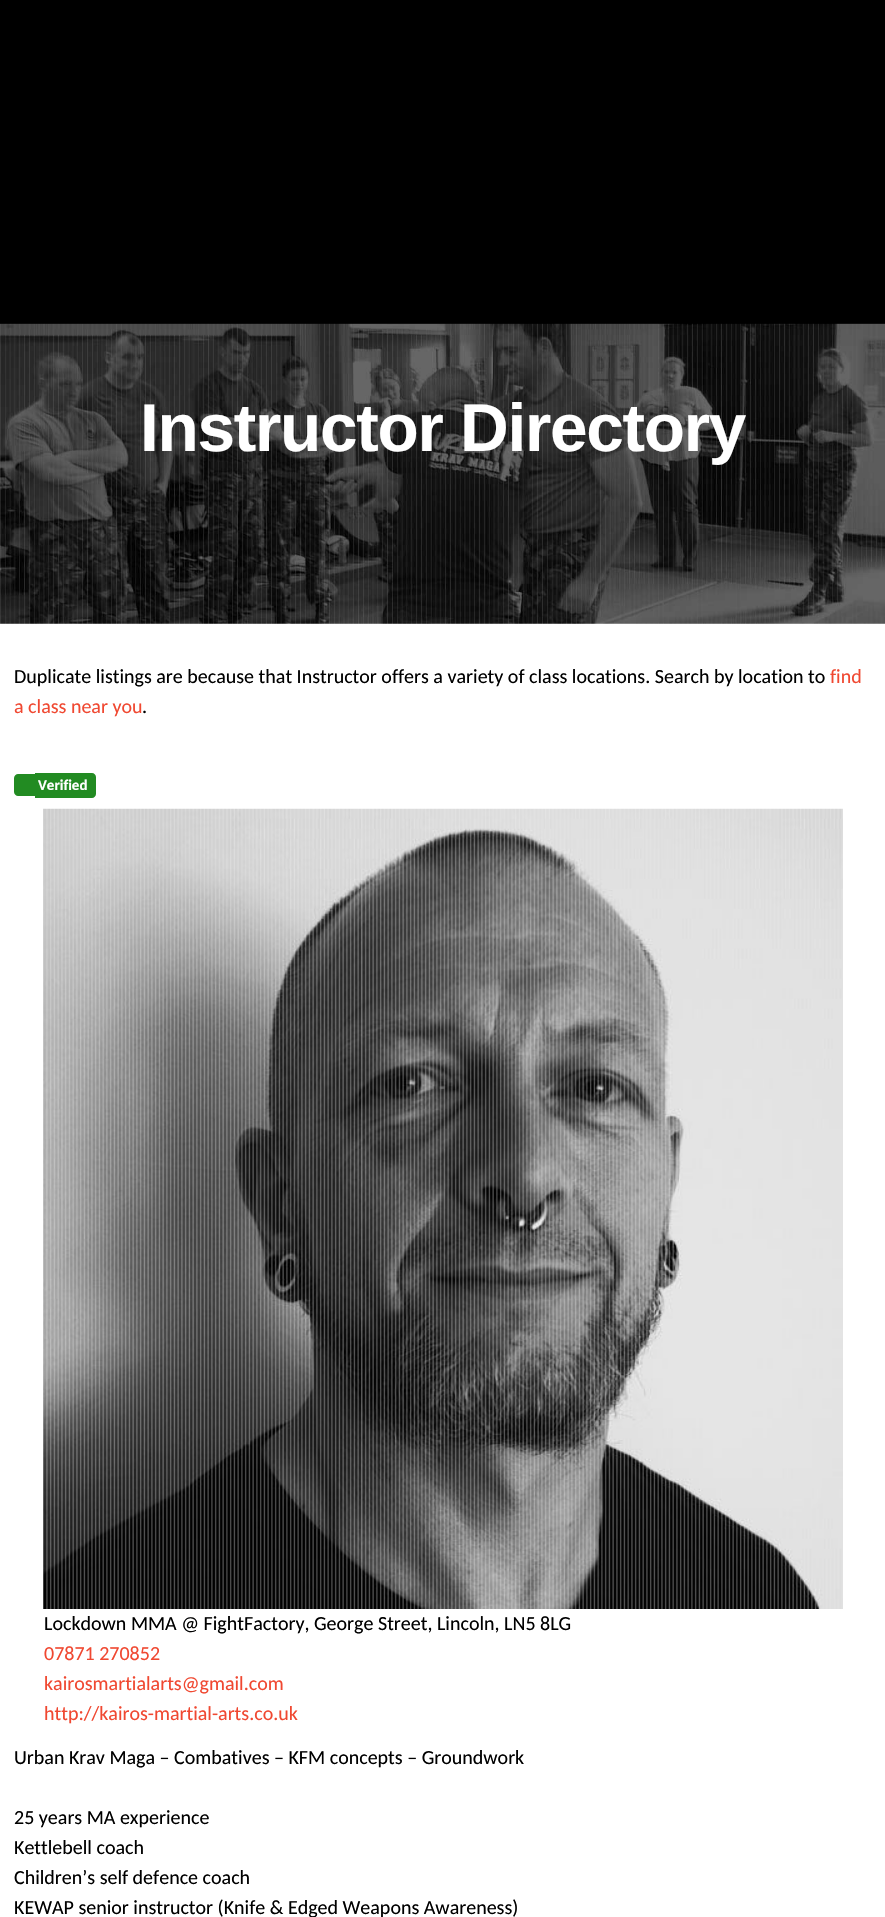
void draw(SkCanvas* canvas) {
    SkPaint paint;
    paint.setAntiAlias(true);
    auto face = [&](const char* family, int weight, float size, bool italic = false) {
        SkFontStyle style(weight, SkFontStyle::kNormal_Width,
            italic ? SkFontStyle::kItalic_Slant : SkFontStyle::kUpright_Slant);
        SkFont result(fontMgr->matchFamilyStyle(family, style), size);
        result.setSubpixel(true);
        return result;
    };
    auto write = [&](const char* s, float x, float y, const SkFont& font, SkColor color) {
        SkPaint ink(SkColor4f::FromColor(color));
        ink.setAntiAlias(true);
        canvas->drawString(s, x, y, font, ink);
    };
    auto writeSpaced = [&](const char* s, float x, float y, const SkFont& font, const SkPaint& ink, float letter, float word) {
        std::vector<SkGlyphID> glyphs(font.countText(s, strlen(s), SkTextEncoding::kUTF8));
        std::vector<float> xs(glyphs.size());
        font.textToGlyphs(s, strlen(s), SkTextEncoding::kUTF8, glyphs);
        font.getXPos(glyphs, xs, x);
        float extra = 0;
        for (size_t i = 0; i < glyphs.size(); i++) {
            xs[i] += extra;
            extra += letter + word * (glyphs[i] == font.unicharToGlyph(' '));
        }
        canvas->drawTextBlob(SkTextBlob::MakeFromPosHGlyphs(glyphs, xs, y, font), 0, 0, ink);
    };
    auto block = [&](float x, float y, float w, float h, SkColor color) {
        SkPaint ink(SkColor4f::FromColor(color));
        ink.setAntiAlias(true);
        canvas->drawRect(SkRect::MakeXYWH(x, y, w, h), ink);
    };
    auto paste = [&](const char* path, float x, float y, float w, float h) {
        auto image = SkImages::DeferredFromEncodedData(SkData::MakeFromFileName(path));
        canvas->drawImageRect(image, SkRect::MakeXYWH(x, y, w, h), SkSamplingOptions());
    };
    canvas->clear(SK_ColorWHITE);
    block(0, 0, 885, 324, SK_ColorBLACK);
    paste("pic1.png", 0, 323, 885, 301);
    auto kFont1 = face("Liberation Sans", 700, 67.5f);
    paint.setColor(SK_ColorWHITE);
    writeSpaced("Instructor Directory", 140, 451, kFont1, paint, -1.25f, 0);
    auto kFont2 = face("Carlito", 400, 20);
    write("Duplicate listings are because that Instructor offers a variety of class locations. Search by location to", 14, 683, kFont2, SK_ColorBLACK);
    write("find", 830, 683, kFont2, SkColorSetRGB(240, 72, 49));
    write("a class near you", 14, 713, kFont2, SkColorSetRGB(240, 72, 49));
    write(".", 142, 713, kFont2, SK_ColorBLACK);
    paint.setColor(SkColorSetRGB(34, 139, 34));
    canvas->drawPath(SkPathBuilder().moveTo(35, 773).lineTo(92, 773).cubicTo(94, 773, 96, 775, 96, 777).lineTo(96, 794).cubicTo(96, 796, 94, 798, 92, 798).lineTo(35, 798).close().detach(), paint);
    auto kFont3 = face("Carlito", 700, 15);
    write("Verified", 38, 790, kFont3, SK_ColorWHITE);
    canvas->drawPath(SkPathBuilder().moveTo(18, 774).lineTo(35, 774).lineTo(35, 796).lineTo(18, 796).cubicTo(16, 796, 14, 794, 14, 792).lineTo(14, 778).cubicTo(14, 776, 16, 774, 18, 774).close().detach(), paint);
    paste("pic2.png", 43, 808, 800, 801);
    write("Lockdown MMA @ FightFactory, George Street, Lincoln, LN5 8LG", 44, 1630, kFont2, SK_ColorBLACK);
    write("07871 270852", 44, 1660, kFont2, SkColorSetRGB(240, 72, 49));
    write("kairosmartialarts@gmail.com", 44, 1690, kFont2, SkColorSetRGB(240, 72, 49));
    write("http://kairos-martial-arts.co.uk", 44, 1720, kFont2, SkColorSetRGB(240, 72, 49));
    write("Urban Krav Maga – Combatives – KFM concepts – Groundwork", 14, 1764, kFont2, SK_ColorBLACK);
    write("25 years MA experience", 14, 1824, kFont2, SK_ColorBLACK);
    write("Kettlebell coach", 14, 1854, kFont2, SK_ColorBLACK);
    write("Children’s self defence coach", 14, 1884, kFont2, SK_ColorBLACK);
    write("KEWAP senior instructor (Knife & Edged Weapons Awareness)", 14, 1914, kFont2, SK_ColorBLACK);
}
